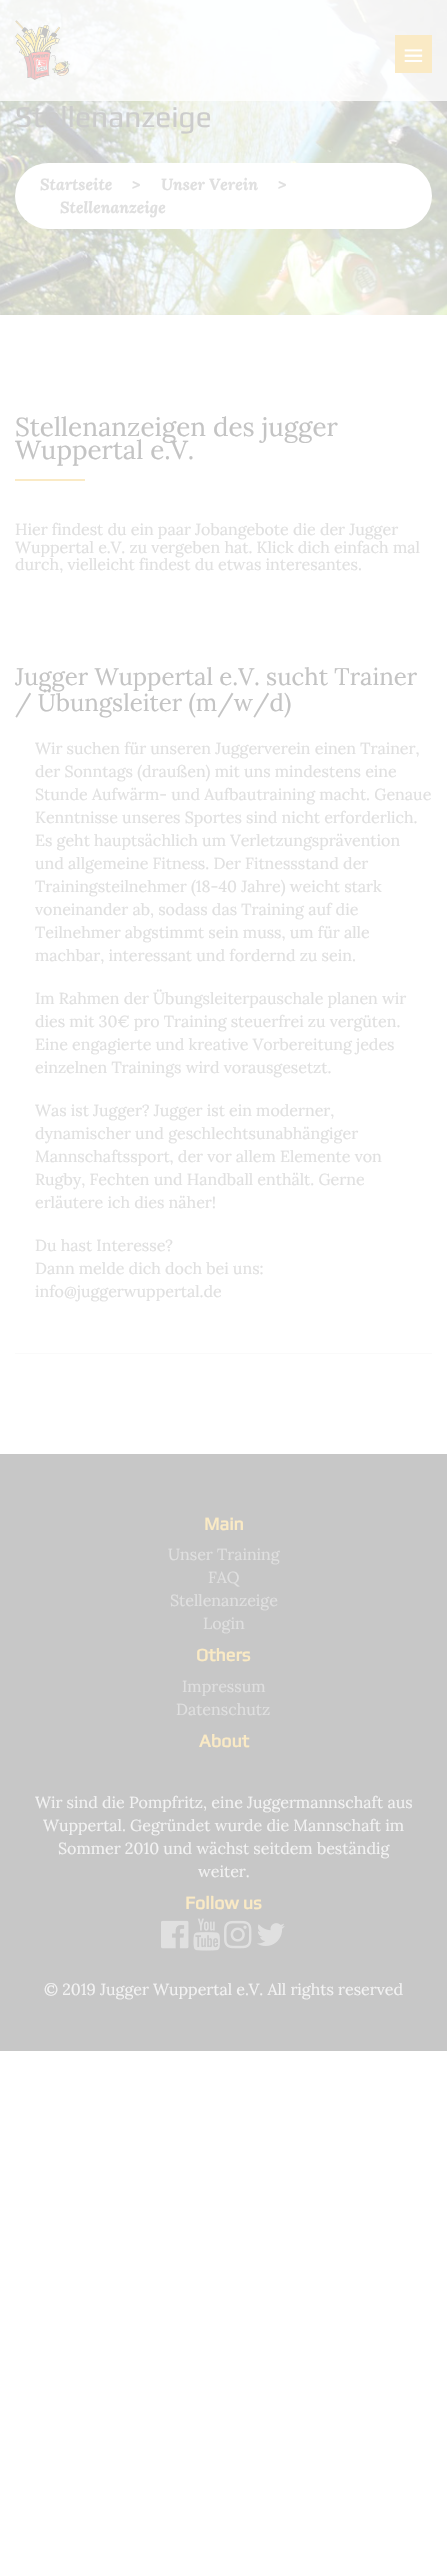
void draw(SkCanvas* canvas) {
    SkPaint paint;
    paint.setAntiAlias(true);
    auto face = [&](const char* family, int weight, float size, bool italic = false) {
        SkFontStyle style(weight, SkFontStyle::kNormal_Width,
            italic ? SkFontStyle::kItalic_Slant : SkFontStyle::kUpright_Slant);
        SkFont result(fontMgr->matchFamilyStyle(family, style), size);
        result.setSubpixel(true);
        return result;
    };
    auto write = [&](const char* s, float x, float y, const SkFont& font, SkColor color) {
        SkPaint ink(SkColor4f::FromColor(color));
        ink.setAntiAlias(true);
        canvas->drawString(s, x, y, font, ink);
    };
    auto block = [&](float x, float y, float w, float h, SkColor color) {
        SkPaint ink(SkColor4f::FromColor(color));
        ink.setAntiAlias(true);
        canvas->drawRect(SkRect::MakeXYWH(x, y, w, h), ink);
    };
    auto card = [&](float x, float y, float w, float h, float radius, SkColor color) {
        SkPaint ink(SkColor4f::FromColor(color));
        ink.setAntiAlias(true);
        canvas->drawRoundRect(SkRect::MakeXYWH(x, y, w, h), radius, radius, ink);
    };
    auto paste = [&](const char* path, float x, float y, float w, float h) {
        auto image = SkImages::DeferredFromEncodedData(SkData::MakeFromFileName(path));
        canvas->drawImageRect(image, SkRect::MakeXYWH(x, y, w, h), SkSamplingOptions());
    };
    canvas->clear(SK_ColorWHITE);
    paste("pic2.png", 0, 0, 447, 315);
    block(0, 0, 447, 101, SkColorSetARGB(201, 255, 255, 255));
    paste("pic1.png", 15, 20, 55, 60);
    block(395, 35, 37, 38, SkColorSetRGB(250, 234, 197));
    auto kFont1 = face("Liberation Serif", 400, 37);
    write("≡", 403, 68, kFont1, SK_ColorWHITE);
    auto kFont2 = face("Play", 400, 30);
    write("Stellenanzeige", 15, 127, kFont2, SkColorSetRGB(204, 204, 204));
    card(15, 163, 417, 66, 33, SK_ColorWHITE);
    auto kFont3 = face("Lora", 700, 16, true);
    write("Startseite", 40, 190, kFont3, SkColorSetRGB(224, 224, 224));
    write(">", 132, 190, kFont3, SkColorSetRGB(224, 224, 224));
    write("Unser Verein", 161, 190, kFont3, SkColorSetRGB(224, 224, 224));
    write(">", 278, 190, kFont3, SkColorSetRGB(224, 224, 224));
    write("Stellenanzeige", 60, 213, kFont3, SkColorSetRGB(224, 224, 224));
    auto kFont4 = face("Lora", 400, 26);
    write("Stellenanzeigen des jugger", 15, 436, kFont4, SkColorSetRGB(196, 196, 196));
    write("Wuppertal e.V.", 15, 459, kFont4, SkColorSetRGB(196, 196, 196));
    block(15, 479, 70, 2, SkColorSetRGB(250, 234, 197));
    auto kFont5 = face("Lora", 400, 16);
    write("Hier findest du ein paar Jobangebote die der Jugger", 15, 535, kFont5, SkColorSetRGB(224, 224, 224));
    write("Wuppertal e.V. zu vergeben hat. Klick dich einfach mal", 15, 553, kFont5, SkColorSetRGB(224, 224, 224));
    write("durch, vielleicht findest du etwas interesantes.", 15, 570, kFont5, SkColorSetRGB(224, 224, 224));
    block(15, 1353, 417, 1, SkColorSetRGB(250, 250, 250));
    auto kFont6 = face("Lora", 400, 24);
    write("Jugger Wuppertal e.V. sucht Trainer", 15, 685, kFont6, SkColorSetRGB(196, 196, 196));
    write("/ Übungsleiter (m/w/d)", 15, 711, kFont6, SkColorSetRGB(196, 196, 196));
    write("Wir suchen für unseren Juggerverein einen Trainer,", 35, 754, kFont5, SkColorSetRGB(224, 224, 224));
    write("der Sonntags (draußen) mit uns mindestens eine", 35, 777, kFont5, SkColorSetRGB(224, 224, 224));
    write("Stunde Aufwärm- und Aufbautraining macht. Genaue", 35, 800, kFont5, SkColorSetRGB(224, 224, 224));
    write("Kenntnisse unseres Sportes sind nicht erforderlich.", 35, 823, kFont5, SkColorSetRGB(224, 224, 224));
    write("Es geht hauptsächlich um Verletzungsprävention", 35, 846, kFont5, SkColorSetRGB(224, 224, 224));
    write("und allgemeine Fitness. Der Fitnessstand der", 35, 869, kFont5, SkColorSetRGB(224, 224, 224));
    write("Trainingsteilnehmer (18-40 Jahre) weicht stark", 35, 892, kFont5, SkColorSetRGB(224, 224, 224));
    write("voneinander ab, sodass das Training auf die", 35, 915, kFont5, SkColorSetRGB(224, 224, 224));
    write("Teilnehmer abgstimmt sein muss, um für alle", 35, 938, kFont5, SkColorSetRGB(224, 224, 224));
    write("machbar, interessant und fordernd zu sein.", 35, 961, kFont5, SkColorSetRGB(224, 224, 224));
    write("Im Rahmen der Übungsleiterpauschale planen wir", 35, 1004, kFont5, SkColorSetRGB(224, 224, 224));
    write("dies mit 30€ pro Training steuerfrei zu vergüten.", 35, 1027, kFont5, SkColorSetRGB(224, 224, 224));
    write("Eine engagierte und kreative Vorbereitung jedes", 35, 1050, kFont5, SkColorSetRGB(224, 224, 224));
    write("einzelnen Trainings wird vorausgesetzt.", 35, 1073, kFont5, SkColorSetRGB(224, 224, 224));
    write("Was ist Jugger? Jugger ist ein moderner,", 35, 1116, kFont5, SkColorSetRGB(224, 224, 224));
    write("dynamischer und geschlechtsunabhängiger", 35, 1139, kFont5, SkColorSetRGB(224, 224, 224));
    write("Mannschaftssport, der vor allem Elemente von", 35, 1162, kFont5, SkColorSetRGB(224, 224, 224));
    write("Rugby, Fechten und Handball enthält. Gerne", 35, 1185, kFont5, SkColorSetRGB(224, 224, 224));
    write("erläutere ich dies näher!", 35, 1208, kFont5, SkColorSetRGB(224, 224, 224));
    write("Du hast Interesse?", 35, 1251, kFont5, SkColorSetRGB(224, 224, 224));
    write("Dann melde dich doch bei uns:", 35, 1274, kFont5, SkColorSetRGB(224, 224, 224));
    write("info@juggerwuppertal.de", 35, 1297, kFont5, SkColorSetRGB(224, 224, 224));
    block(0, 1454, 447, 597, SkColorSetRGB(199, 199, 199));
    auto kFont7 = face("Play", 700, 18);
    write("Main", 204, 1530, kFont7, SkColorSetRGB(250, 234, 197));
    write("Unser Training", 168, 1560, kFont5, SkColorSetRGB(224, 224, 224));
    write("FAQ", 208, 1583, kFont5, SkColorSetRGB(224, 224, 224));
    write("Stellenanzeige", 170, 1606, kFont5, SkColorSetRGB(224, 224, 224));
    write("Login", 203, 1629, kFont5, SkColorSetRGB(224, 224, 224));
    write("Others", 196, 1661, kFont7, SkColorSetRGB(250, 234, 197));
    write("Impressum", 182, 1692, kFont5, SkColorSetRGB(224, 224, 224));
    write("Datenschutz", 176, 1715, kFont5, SkColorSetRGB(224, 224, 224));
    write("About", 199, 1747, kFont7, SkColorSetRGB(250, 234, 197));
    write("Wir sind die Pompfritz, eine Juggermannschaft aus", 35, 1808, kFont5, SkColorSetRGB(243, 243, 243));
    write("Wuppertal. Gegründet wurde die Mannschaft im", 43, 1831, kFont5, SkColorSetRGB(243, 243, 243));
    write("Sommer 2010 und wächst seitdem beständig", 58, 1854, kFont5, SkColorSetRGB(243, 243, 243));
    write("weiter.", 198, 1877, kFont5, SkColorSetRGB(243, 243, 243));
    write("Follow us", 185, 1909, kFont7, SkColorSetRGB(250, 234, 197));
    paste("pic3.png", 161, 1920, 28, 29);
    paste("pic4.png", 193, 1918, 27, 33);
    paste("pic5.png", 224, 1920, 28, 29);
    paste("pic6.png", 257, 1923, 28, 23);
    write("© 2019 Jugger Wuppertal e.V. All rights reserved", 44, 1995, kFont5, SkColorSetRGB(243, 243, 243));
}
